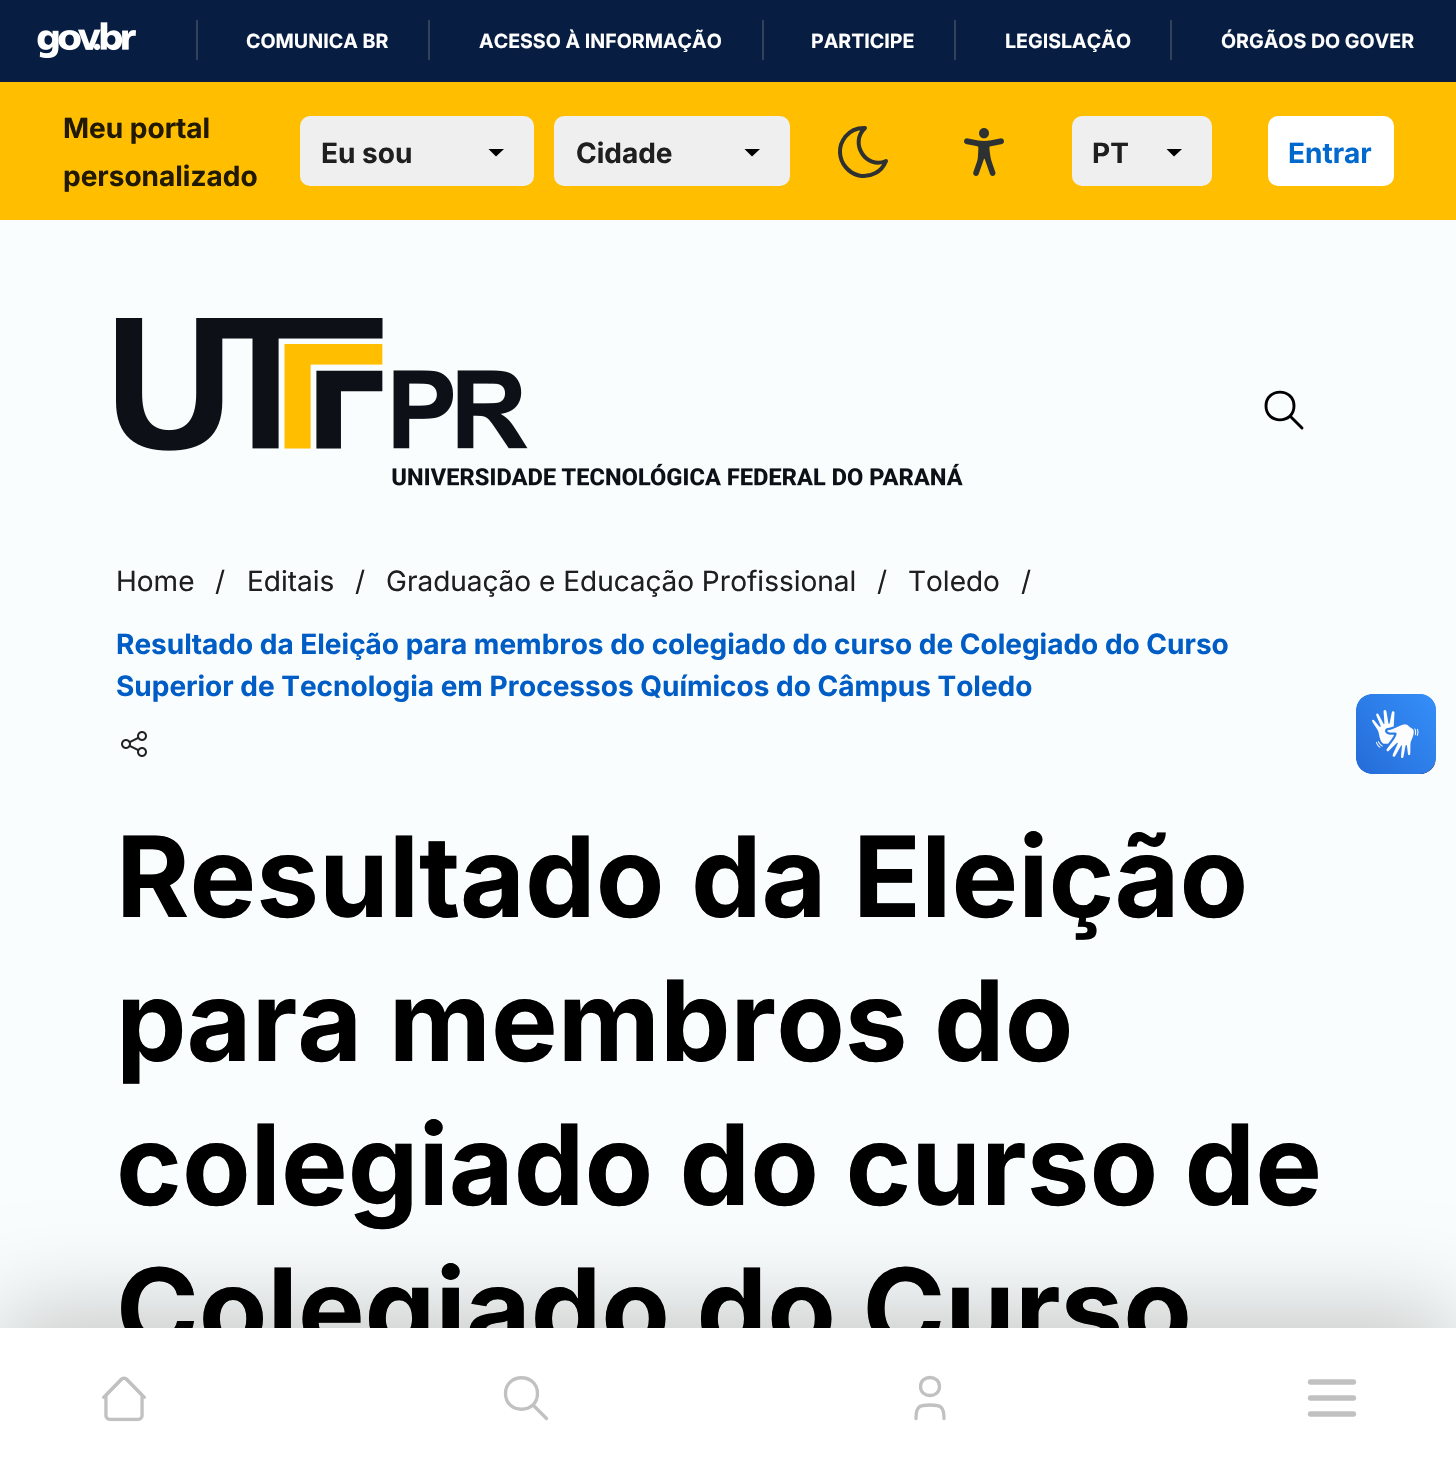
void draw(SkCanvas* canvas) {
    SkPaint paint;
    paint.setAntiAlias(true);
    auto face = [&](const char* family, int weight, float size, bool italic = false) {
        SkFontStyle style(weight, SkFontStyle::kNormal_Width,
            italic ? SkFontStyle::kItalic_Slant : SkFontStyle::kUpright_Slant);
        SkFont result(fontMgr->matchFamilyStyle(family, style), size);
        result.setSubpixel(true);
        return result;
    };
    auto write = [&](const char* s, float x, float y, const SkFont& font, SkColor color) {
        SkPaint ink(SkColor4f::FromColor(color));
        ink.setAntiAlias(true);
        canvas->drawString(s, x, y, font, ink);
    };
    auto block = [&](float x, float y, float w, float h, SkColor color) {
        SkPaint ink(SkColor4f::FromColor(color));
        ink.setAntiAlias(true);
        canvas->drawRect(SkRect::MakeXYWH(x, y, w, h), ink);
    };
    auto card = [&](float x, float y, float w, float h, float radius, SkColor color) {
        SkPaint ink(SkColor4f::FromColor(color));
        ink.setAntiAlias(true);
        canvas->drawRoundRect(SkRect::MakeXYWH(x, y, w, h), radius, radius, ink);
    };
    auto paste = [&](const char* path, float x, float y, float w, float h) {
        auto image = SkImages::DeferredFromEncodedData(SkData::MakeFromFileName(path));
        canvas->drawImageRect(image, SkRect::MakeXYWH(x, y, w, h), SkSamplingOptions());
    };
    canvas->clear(SkColorSetRGB(250, 253, 253));
    block(0, 0, 1456, 82, SkColorSetRGB(7, 29, 65));
    paste("pic1.png", 37, 22, 99, 36);
    block(196, 20, 2, 40, SkColorSetRGB(50, 66, 91));
    auto kFont1 = face("Inter", 700, 19.6f);
    write("COMUNICA BR", 246, 48, kFont1, SK_ColorWHITE);
    block(428, 20, 2, 40, SkColorSetRGB(50, 66, 91));
    write("ACESSO À INFORMAÇÃO", 479, 48, kFont1, SK_ColorWHITE);
    block(762, 20, 2, 40, SkColorSetRGB(50, 66, 91));
    write("PARTICIPE", 811, 48, kFont1, SK_ColorWHITE);
    block(954, 20, 2, 40, SkColorSetRGB(50, 66, 91));
    write("LEGISLAÇÃO", 1005, 48, kFont1, SK_ColorWHITE);
    block(1170, 20, 2, 40, SkColorSetRGB(50, 66, 91));
    write("ÓRGÃOS DO GOVER", 1221, 48, kFont1, SK_ColorWHITE);
    block(0, 82, 1456, 138, SkColorSetRGB(255, 190, 0));
    auto kFont2 = face("Inter", 700, 28);
    write("Meu portal", 63, 138, kFont2, SkColorSetRGB(33, 25, 0));
    write("personalizado", 63, 186, kFont2, SkColorSetRGB(33, 25, 0));
    card(300, 116, 234, 70, 10, SkColorSetRGB(239, 239, 239));
    paint.setColor(SK_ColorBLACK);
    canvas->drawPath(SkPathBuilder().moveTo(488.5f, 149).lineTo(496, 156.5f).lineTo(504, 149).detach(), paint);
    write("Eu sou", 321, 163, kFont2, SkColorSetRGB(31, 31, 31));
    card(554, 116, 236, 70, 10, SkColorSetRGB(239, 239, 239));
    canvas->drawPath(SkPathBuilder().moveTo(744.5f, 149).lineTo(752, 156.5f).lineTo(760, 149).detach(), paint);
    write("Cidade", 576, 163, kFont2, SkColorSetRGB(31, 31, 31));
    paint.setStyle(SkPaint::kStroke_Style);
    paint.setStrokeWidth(4);
    paint.setStrokeCap(SkPaint::kRound_Cap);
    paint.setStrokeJoin(SkPaint::kRound_Join);
    paint.setColor(SkColorSetRGB(46, 49, 50));
    canvas->drawPath(SkPathBuilder().moveTo(864, 128).lineTo(865, 128).cubicTo(849, 143, 866, 169.5f, 886, 161).cubicTo(884, 166, 880.5f, 170.5f, 875.5f, 173).cubicTo(852.5f, 185.5f, 829, 157, 845.5f, 136.5f).cubicTo(850, 131, 857, 128, 864, 128).close().detach(), paint);
    paste("pic2.png", 964, 128, 40, 48);
    card(1072, 116, 140, 70, 10, SkColorSetRGB(239, 239, 239));
    paint.setStyle(SkPaint::kFill_Style);
    paint.setColor(SK_ColorBLACK);
    canvas->drawPath(SkPathBuilder().moveTo(1166.5f, 149).lineTo(1174, 156.5f).lineTo(1182, 149).detach(), paint);
    write("PT", 1092, 163, kFont2, SkColorSetRGB(31, 31, 31));
    card(1268, 116, 126, 70, 10, SK_ColorWHITE);
    write("Entrar", 1288, 163, kFont2, SkColorSetRGB(1, 105, 205));
    paste("pic3.png", 116, 318, 847, 168);
    paint.setStyle(SkPaint::kStroke_Style);
    paint.setStrokeWidth(2.9f);
    canvas->drawPath(SkPathBuilder().moveTo(1302, 428).lineTo(1290, 416).moveTo(1266, 406).cubicTo(1266, 424.5f, 1294, 424.5f, 1294, 406).cubicTo(1294, 387.5f, 1266, 387.5f, 1266, 406).close().detach(), paint);
    paint.setStyle(SkPaint::kFill_Style);
    paint.setColor(SkColorSetARGB(51, 0, 0, 0));
    paint.setMaskFilter(SkMaskFilter::MakeBlur(kNormal_SkBlurStyle, 45));
    canvas->drawRect(SkRect::MakeXYWH(0, 1308, 1456, 140), paint);
    paint.setMaskFilter(nullptr);
    auto kFont3 = face("Inter", 700, 112);
    write("Colegiado do Curso", 116, 1349, kFont3, SK_ColorBLACK);
    block(0, 1328, 1456, 140, SK_ColorWHITE);
    paste("pic4.png", 102, 1376, 44, 46);
    paint.setStyle(SkPaint::kStroke_Style);
    paint.setStrokeWidth(3.3f);
    paint.setColor(SkColorSetRGB(193, 193, 193));
    canvas->drawPath(SkPathBuilder().moveTo(546.5f, 1418.5f).lineTo(533, 1405).moveTo(505.5f, 1393.5f).cubicTo(505.5f, 1414.5f, 537.5f, 1414.5f, 537.5f, 1393.5f).cubicTo(537.5f, 1372.5f, 505.5f, 1372.5f, 505.5f, 1393.5f).close().detach(), paint);
    canvas->drawPath(SkPathBuilder().moveTo(916, 1418.5f).cubicTo(916, 1407, 918.5f, 1405, 930, 1405).cubicTo(941.5f, 1405, 944, 1407, 944, 1418.5f).moveTo(920.5f, 1386.5f).cubicTo(920.5f, 1398.5f, 939.5f, 1398.5f, 939.5f, 1386.5f).cubicTo(939.5f, 1374.5f, 920.5f, 1374.5f, 920.5f, 1386.5f).close().detach(), paint);
    paint.setStrokeWidth(5.3f);
    paint.setStrokeJoin(SkPaint::kMiter_Join);
    canvas->drawPath(SkPathBuilder().moveTo(1310.5f, 1414).lineTo(1353.5f, 1414).moveTo(1310.5f, 1398).lineTo(1353.5f, 1398).moveTo(1310.5f, 1382).lineTo(1353.5f, 1382).detach(), paint);
    auto kFont4 = face("Inter", 400, 28);
    write("Home", 116, 591, kFont4, SkColorSetRGB(31, 31, 31));
    write("/", 215, 591, kFont4, SkColorSetRGB(31, 31, 31));
    write("Editais", 247, 591, kFont4, SkColorSetRGB(31, 31, 31));
    write("/", 355, 591, kFont4, SkColorSetRGB(31, 31, 31));
    write("Graduação e Educação Profissional", 386, 591, kFont4, SkColorSetRGB(31, 31, 31));
    write("/", 877, 591, kFont4, SkColorSetRGB(31, 31, 31));
    write("Toledo", 908, 591, kFont4, SkColorSetRGB(31, 31, 31));
    write("/", 1021, 591, kFont4, SkColorSetRGB(31, 31, 31));
    write("Resultado da Eleição para membros do colegiado do curso de Colegiado do Curso", 116, 654, kFont2, SkColorSetRGB(0, 93, 197));
    write("Superior de Tecnologia em Processos Químicos do Câmpus Toledo", 116, 696, kFont2, SkColorSetRGB(0, 93, 197));
    paste("pic5.png", 121, 731, 26, 26);
    write("Resultado da Eleição", 116, 917, kFont3, SK_ColorBLACK);
    write("para membros do", 116, 1061, kFont3, SK_ColorBLACK);
    write("colegiado do curso de", 116, 1205, kFont3, SK_ColorBLACK);
    paste("pic6.png", 1356, 694, 80, 80);
    paste("pic7.png", 1356, 694, 80, 80);
}
